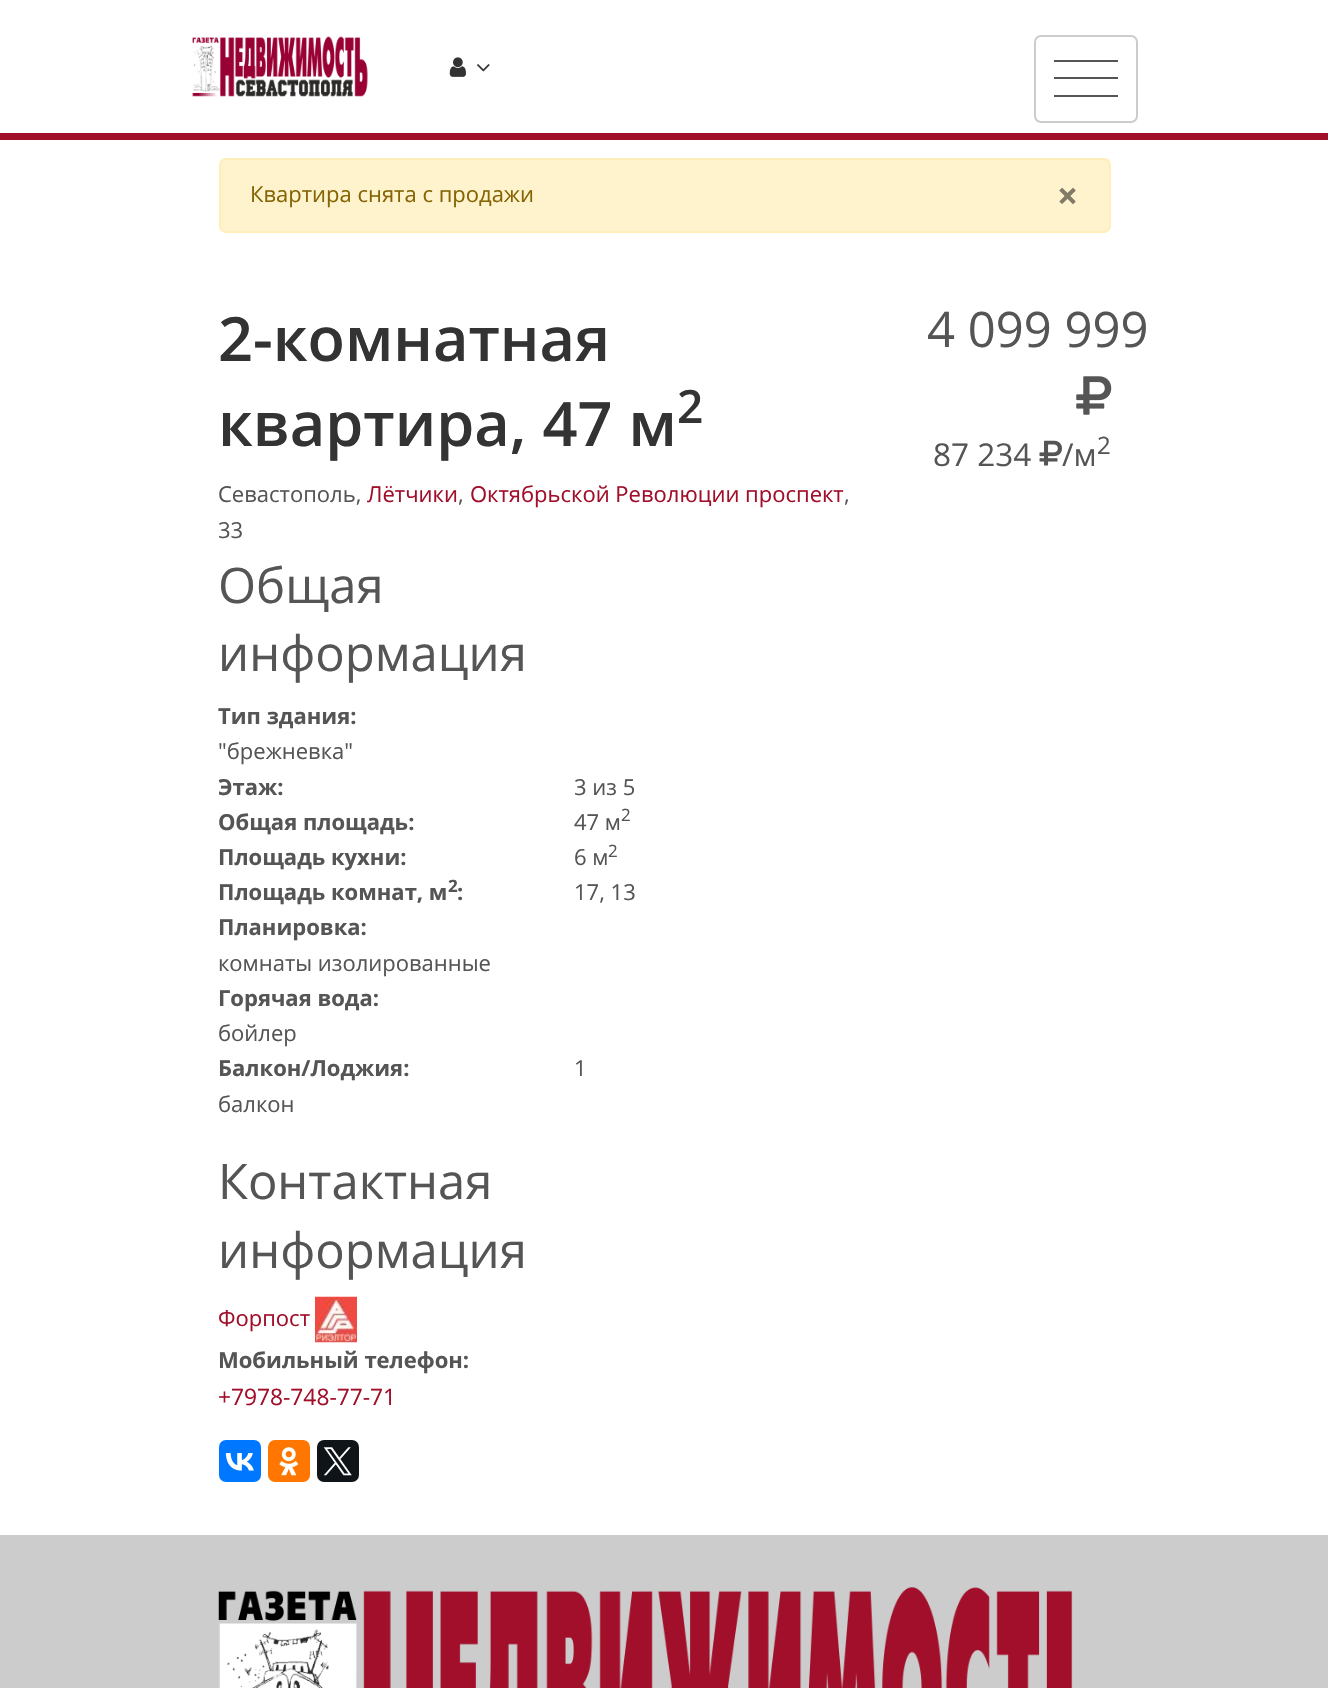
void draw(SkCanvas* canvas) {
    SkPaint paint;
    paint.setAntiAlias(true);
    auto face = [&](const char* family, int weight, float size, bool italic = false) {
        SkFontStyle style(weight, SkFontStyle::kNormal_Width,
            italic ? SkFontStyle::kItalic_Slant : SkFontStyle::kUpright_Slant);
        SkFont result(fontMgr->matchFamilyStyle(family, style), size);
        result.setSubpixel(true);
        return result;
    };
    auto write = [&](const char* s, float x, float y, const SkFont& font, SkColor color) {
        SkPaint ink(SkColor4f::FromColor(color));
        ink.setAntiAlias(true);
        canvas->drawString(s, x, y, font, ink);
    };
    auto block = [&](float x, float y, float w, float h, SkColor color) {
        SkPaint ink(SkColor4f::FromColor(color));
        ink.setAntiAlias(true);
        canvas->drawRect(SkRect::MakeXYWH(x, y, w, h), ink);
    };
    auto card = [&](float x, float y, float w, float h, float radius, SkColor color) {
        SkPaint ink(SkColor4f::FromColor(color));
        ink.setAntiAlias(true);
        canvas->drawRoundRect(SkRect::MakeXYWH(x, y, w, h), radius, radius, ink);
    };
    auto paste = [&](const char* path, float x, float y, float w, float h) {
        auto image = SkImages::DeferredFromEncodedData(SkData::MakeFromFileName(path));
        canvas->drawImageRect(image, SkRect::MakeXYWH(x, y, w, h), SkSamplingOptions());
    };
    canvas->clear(SK_ColorWHITE);
    block(0, 133, 1328, 7, SkColorSetRGB(161, 15, 43));
    paste("pic1.png", 192, 36, 176, 61);
    paste("pic2.png", 449, 57, 17, 20);
    paste("pic3.png", 477, 64, 13, 8);
    paint.setStyle(SkPaint::kStroke_Style);
    paint.setStrokeWidth(2);
    paint.setColor(SkColorSetRGB(204, 204, 204));
    canvas->drawRoundRect(SkRect::MakeXYWH(1035, 36, 102, 86), 6, 6, paint);
    block(1054, 60, 64, 2, SkColorSetRGB(85, 85, 85));
    block(1054, 77, 64, 2, SkColorSetRGB(85, 85, 85));
    block(1054, 95, 64, 2, SkColorSetRGB(85, 85, 85));
    paint.setStyle(SkPaint::kFill_Style);
    paint.setColor(SkColorSetRGB(255, 243, 205));
    canvas->drawRoundRect(SkRect::MakeXYWH(220, 159, 890, 73), 6, 6, paint);
    paint.setStyle(SkPaint::kStroke_Style);
    paint.setColor(SkColorSetRGB(255, 238, 186));
    canvas->drawRoundRect(SkRect::MakeXYWH(220, 159, 890, 73), 6, 6, paint);
    auto kFont1 = face("Open Sans", 400, 22);
    write("Квартира снята с продажи", 250, 202, kFont1, SkColorSetRGB(133, 100, 4));
    auto kFont2 = face("Open Sans", 700, 37);
    write("×", 1057, 209, kFont2, SkColorSetRGB(128, 122, 103));
    auto kFont3 = face("Open Sans", 600, 61.25f);
    write("2-комнатная", 218, 361, kFont3, SkColorSetRGB(51, 51, 51));
    write("квартира, 47 м", 218, 446, kFont3, SkColorSetRGB(51, 51, 51));
    auto kFont4 = face("Open Sans", 600, 46);
    write("2", 677, 423, kFont4, SkColorSetRGB(51, 51, 51));
    write("Севастополь,", 218, 502, kFont1, SkColorSetRGB(85, 85, 85));
    write("Лётчики", 367, 502, kFont1, SkColorSetRGB(161, 15, 43));
    write(",", 458, 502, kFont1, SkColorSetRGB(85, 85, 85));
    write("Октябрьской Революции проспект", 470, 502, kFont1, SkColorSetRGB(161, 15, 43));
    write(",", 844, 502, kFont1, SkColorSetRGB(85, 85, 85));
    write("33", 218, 538, kFont1, SkColorSetRGB(85, 85, 85));
    auto kFont5 = face("Open Sans", 400, 49);
    write("4 099 999", 927, 347, kFont5, SkColorSetRGB(85, 85, 85));
    paste("pic4.png", 1076, 376, 36, 39);
    auto kFont6 = face("Open Sans", 400, 31.5f);
    write("87 234", 933, 466, kFont6, SkColorSetRGB(85, 85, 85));
    paste("pic5.png", 1039, 440, 23, 26);
    write("/м", 1062, 466, kFont6, SkColorSetRGB(85, 85, 85));
    auto kFont7 = face("Open Sans", 400, 24);
    write("2", 1097, 454, kFont7, SkColorSetRGB(85, 85, 85));
    write("Общая", 218, 603, kFont5, SkColorSetRGB(85, 85, 85));
    write("информация", 218, 671, kFont5, SkColorSetRGB(85, 85, 85));
    auto kFont8 = face("Open Sans", 700, 22);
    write("Тип здания:", 218, 724, kFont8, SkColorSetRGB(85, 85, 85));
    write("\"брежневка\"", 218, 759, kFont1, SkColorSetRGB(85, 85, 85));
    write("Этаж:", 218, 795, kFont8, SkColorSetRGB(85, 85, 85));
    write("3 из 5", 574, 795, kFont1, SkColorSetRGB(85, 85, 85));
    write("Общая площадь:", 218, 830, kFont8, SkColorSetRGB(85, 85, 85));
    write("47 м", 574, 830, kFont1, SkColorSetRGB(85, 85, 85));
    auto kFont9 = face("Open Sans", 400, 17);
    write("2", 621, 821, kFont9, SkColorSetRGB(85, 85, 85));
    write("Площадь кухни:", 218, 865, kFont8, SkColorSetRGB(85, 85, 85));
    write("6 м", 574, 865, kFont1, SkColorSetRGB(85, 85, 85));
    write("2", 608, 857, kFont9, SkColorSetRGB(85, 85, 85));
    write("Площадь комнат, м", 218, 900, kFont8, SkColorSetRGB(85, 85, 85));
    auto kFont10 = face("Open Sans", 700, 17);
    write("2", 448, 892, kFont10, SkColorSetRGB(85, 85, 85));
    write(":", 457, 900, kFont8, SkColorSetRGB(85, 85, 85));
    write("17, 13", 574, 900, kFont1, SkColorSetRGB(85, 85, 85));
    write("Планировка:", 218, 935, kFont8, SkColorSetRGB(85, 85, 85));
    write("комнаты изолированные", 218, 971, kFont1, SkColorSetRGB(85, 85, 85));
    write("Горячая вода:", 218, 1006, kFont8, SkColorSetRGB(85, 85, 85));
    write("бойлер", 218, 1041, kFont1, SkColorSetRGB(85, 85, 85));
    write("Балкон/Лоджия:", 218, 1076, kFont8, SkColorSetRGB(85, 85, 85));
    write("1", 574, 1076, kFont1, SkColorSetRGB(85, 85, 85));
    write("балкон", 218, 1112, kFont1, SkColorSetRGB(85, 85, 85));
    write("Контактная", 218, 1199, kFont5, SkColorSetRGB(85, 85, 85));
    write("информация", 218, 1268, kFont5, SkColorSetRGB(85, 85, 85));
    write("Форпост", 218, 1326, kFont1, SkColorSetRGB(161, 15, 43));
    paste("pic6.png", 315, 1296, 42, 47);
    write("Мобильный телефон:", 218, 1368, kFont8, SkColorSetRGB(85, 85, 85));
    auto kFont11 = face("Open Sans", 400, 22.75f);
    write("+7978-748-77-71", 218, 1405, kFont11, SkColorSetRGB(161, 15, 43));
    card(219, 1440, 42, 42, 7, SkColorSetRGB(0, 119, 255));
    paste("pic7.png", 225, 1453, 29, 18);
    card(268, 1440, 42, 42, 7, SkColorSetRGB(255, 119, 0));
    paste("pic8.png", 279, 1447, 20, 29);
    card(317, 1440, 42, 42, 7, SkColorSetRGB(15, 20, 25));
    paste("pic9.png", 323, 1447, 29, 29);
    block(0, 1535, 1328, 153, SkColorSetRGB(204, 204, 204));
    paste("pic10.png", 218, 1587, 855, 101);
}
